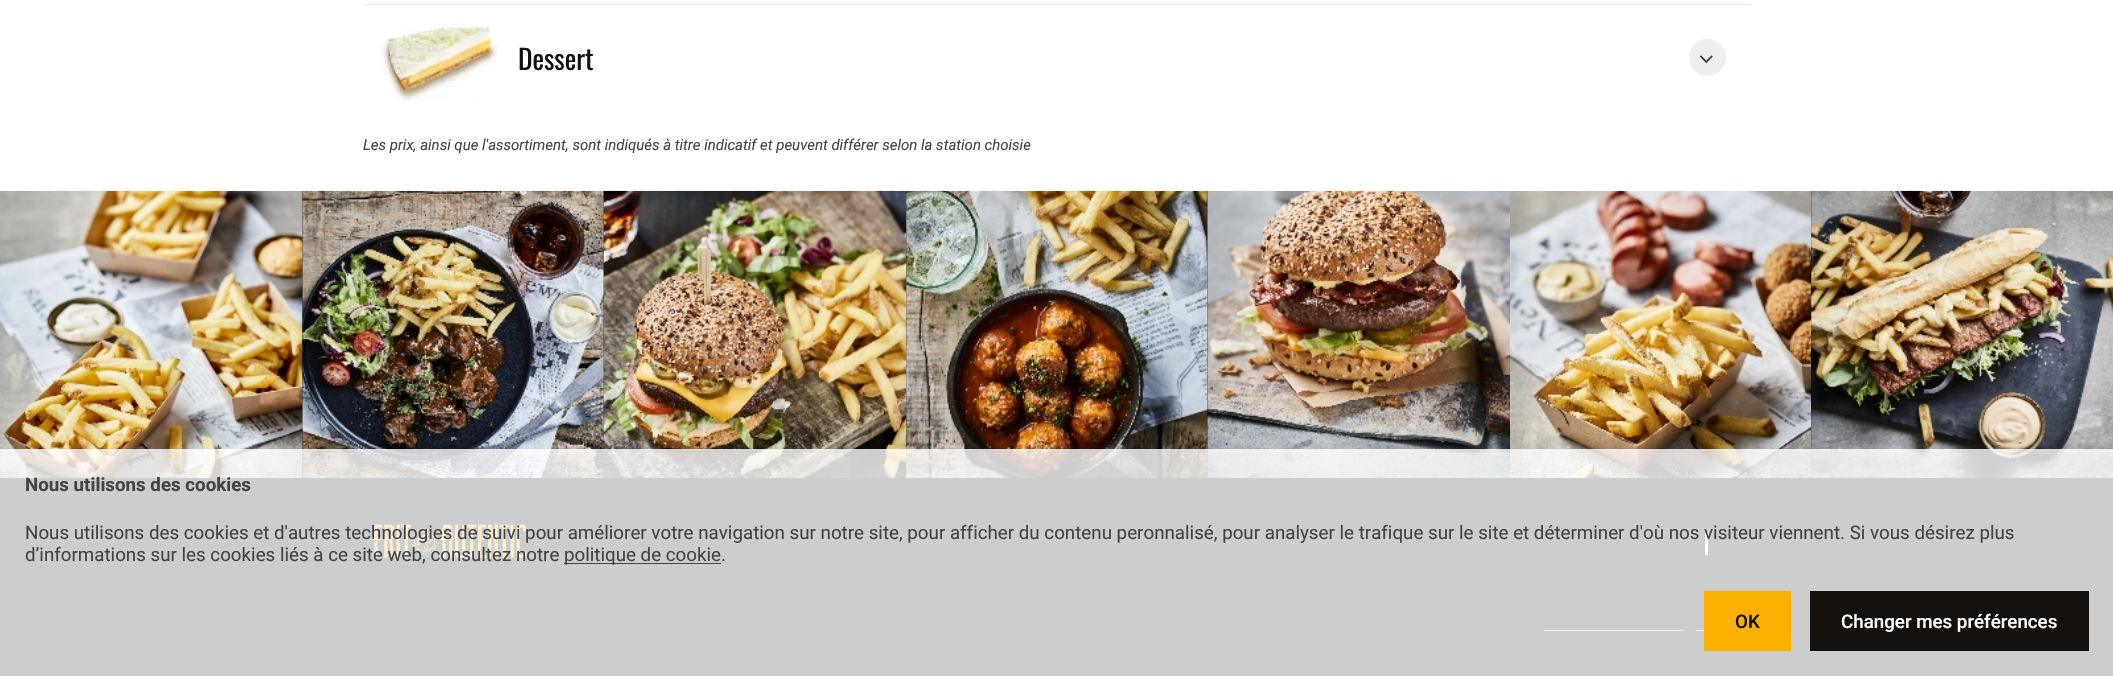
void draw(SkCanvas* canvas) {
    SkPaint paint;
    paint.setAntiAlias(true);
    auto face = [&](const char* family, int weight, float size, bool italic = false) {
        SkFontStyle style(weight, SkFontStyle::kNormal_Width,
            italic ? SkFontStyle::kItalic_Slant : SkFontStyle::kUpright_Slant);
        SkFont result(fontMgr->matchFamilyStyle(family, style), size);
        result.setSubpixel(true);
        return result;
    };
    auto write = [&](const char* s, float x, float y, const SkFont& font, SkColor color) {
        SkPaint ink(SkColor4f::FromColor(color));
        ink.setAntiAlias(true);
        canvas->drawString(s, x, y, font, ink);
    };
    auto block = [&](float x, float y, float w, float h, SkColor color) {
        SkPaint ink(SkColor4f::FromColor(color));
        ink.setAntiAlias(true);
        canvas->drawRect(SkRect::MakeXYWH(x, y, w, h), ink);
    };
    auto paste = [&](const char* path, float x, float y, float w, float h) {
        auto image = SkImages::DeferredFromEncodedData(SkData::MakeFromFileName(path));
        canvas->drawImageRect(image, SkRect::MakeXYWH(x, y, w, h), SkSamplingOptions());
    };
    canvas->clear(SK_ColorWHITE);
    block(364, 4, 1387, 1, SkColorSetRGB(239, 239, 239));
    paste("pic1.png", 379, 25, 119, 77);
    auto kFont1 = face("Oswald", 400, 27.5f);
    write("Dessert", 518, 70, kFont1, SkColorSetRGB(19, 16, 13));
    paint.setColor(SkColorSetRGB(239, 239, 239));
    canvas->drawCircle(1707.5f, 57.5f, 18.5f, paint);
    paste("pic2.png", 1700, 55, 13, 8);
    auto kFont2 = face("Roboto", 400, 15, true);
    write("Les prix, ainsi que l'assortiment, sont indiqués à titre indicatif et peuvent différer selon la station choisie", 363, 150, kFont2, SkColorSetRGB(68, 68, 68));
    block(0, 191, 2113, 485, SkColorSetRGB(0, 2, 9));
    paste("pic3.png", 0, 190, 303, 289);
    paste("pic4.png", 302, 190, 302, 289);
    paste("pic5.png", 603, 190, 304, 289);
    paste("pic6.png", 906, 190, 302, 289);
    paste("pic7.png", 1207, 190, 303, 289);
    paste("pic8.png", 1510, 190, 302, 289);
    paste("pic9.png", 1811, 190, 302, 289);
    paste("pic10.png", 371, 524, 156, 34);
    block(1705, 533, 3, 22, SK_ColorWHITE);
    block(1544, 630, 140, 1, SkColorSetRGB(170, 170, 170));
    block(1696, 630, 8, 1, SkColorSetRGB(170, 170, 170));
    block(0, 449, 2113, 227, SkColorSetARGB(204, 255, 255, 255));
    auto kFont3 = face("Roboto", 700, 18.75f);
    write("Nous utilisons des cookies", 25, 491, kFont3, SkColorSetRGB(68, 68, 68));
    auto kFont4 = face("Roboto", 400, 18.75f);
    write("Nous utilisons des cookies et d'autres technologies de suivi pour améliorer votre navigation sur notre site, pour afficher du contenu peronnalisé, pour analyser le trafique sur le site et déterminer d'où nos visiteur viennent. Si vous désirez plus", 25, 539, kFont4, SkColorSetRGB(68, 68, 68));
    write("d’informations sur les cookies liés à ce site web, consultez notre", 25, 561, kFont4, SkColorSetRGB(68, 68, 68));
    block(564, 563, 157, 1, SkColorSetRGB(68, 68, 68));
    write("politique de cookie.", 564, 561, kFont4, SkColorSetRGB(68, 68, 68));
    block(1704, 591, 87, 60, SkColorSetRGB(250, 176, 1));
    auto kFont5 = face("Roboto", 500, 18.75f);
    write("OK", 1735, 628, kFont5, SkColorSetRGB(19, 16, 13));
    block(1810, 591, 279, 60, SkColorSetRGB(19, 16, 13));
    write("Changer mes préférences", 1841, 628, kFont5, SK_ColorWHITE);
}
